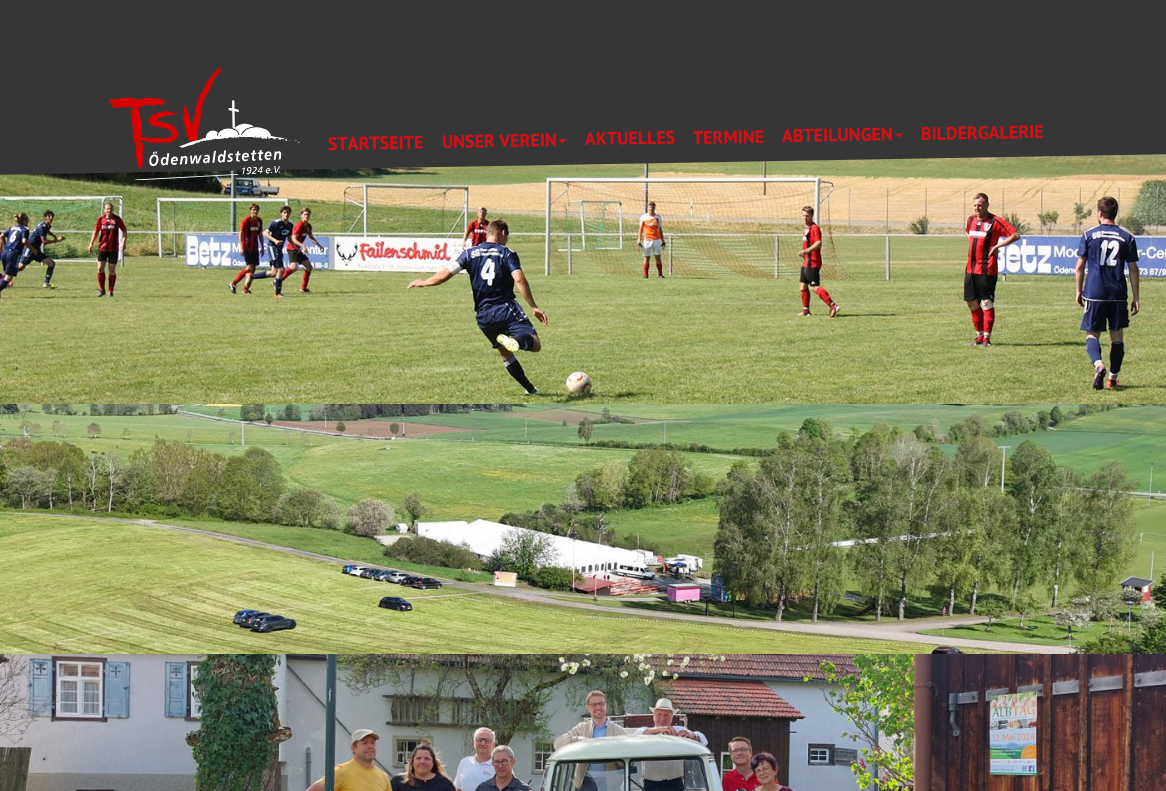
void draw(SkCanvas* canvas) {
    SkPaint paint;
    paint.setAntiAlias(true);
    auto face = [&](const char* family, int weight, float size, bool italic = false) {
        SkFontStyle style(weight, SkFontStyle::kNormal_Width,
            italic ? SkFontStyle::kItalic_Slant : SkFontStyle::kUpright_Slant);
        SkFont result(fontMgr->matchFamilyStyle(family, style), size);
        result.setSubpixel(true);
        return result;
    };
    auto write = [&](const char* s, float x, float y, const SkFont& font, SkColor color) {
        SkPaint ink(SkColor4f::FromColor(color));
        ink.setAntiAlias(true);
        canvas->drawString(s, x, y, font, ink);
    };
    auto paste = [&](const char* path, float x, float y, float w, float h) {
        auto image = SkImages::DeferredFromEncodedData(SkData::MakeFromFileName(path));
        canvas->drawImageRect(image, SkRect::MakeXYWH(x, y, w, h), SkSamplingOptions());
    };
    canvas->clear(SkColorSetRGB(54, 54, 54));
    paste("pic2.png", 0, 154, 1166, 250);
    paint.setColor(SkColorSetRGB(54, 54, 54));
    canvas->drawPath(SkPathBuilder().moveTo(-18, 21).lineTo(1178, 0).lineTo(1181, 154).lineTo(-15, 175).close().detach(), paint);
    paste("pic1.png", 109, 67, 191, 113);
    auto kFont1 = face("PT Sans", 700, 18);
    canvas->save();
    canvas->rotate(-1, 328, 150);
    write("STARTSEITE", 328, 150, kFont1, SkColorSetRGB(215, 14, 21));
    canvas->restore();
    canvas->save();
    canvas->rotate(-1, 442, 148);
    write("UNSER VEREIN", 442, 148, kFont1, SkColorSetRGB(215, 14, 21));
    canvas->restore();
    paint.setColor(SkColorSetRGB(215, 14, 21));
    canvas->drawPath(SkPathBuilder().moveTo(558.5f, 139.5f).lineTo(566.5f, 139).lineTo(562.5f, 143.5f).close().detach(), paint);
    canvas->save();
    canvas->rotate(-1, 585, 145);
    write("AKTUELLES", 585, 145, kFont1, SkColorSetRGB(215, 14, 21));
    canvas->restore();
    canvas->save();
    canvas->rotate(-1, 693, 144);
    write("TERMINE", 693, 144, kFont1, SkColorSetRGB(215, 14, 21));
    canvas->restore();
    canvas->save();
    canvas->rotate(-1, 782, 142);
    write("ABTEILUNGEN", 782, 142, kFont1, SkColorSetRGB(215, 14, 21));
    canvas->restore();
    canvas->drawPath(SkPathBuilder().moveTo(895, 133.5f).lineTo(903, 133.5f).lineTo(899, 137.5f).close().detach(), paint);
    canvas->save();
    canvas->rotate(-1, 921, 140);
    write("BILDERGALERIE", 921, 140, kFont1, SkColorSetRGB(215, 14, 21));
    canvas->restore();
    paste("pic3.png", 0, 404, 1166, 250);
    auto kFont2 = face("PT Sans", 400, 14);
    write("Prev", 0, 419, kFont2, SkColorSetRGB(124, 141, 102));
    paste("pic4.png", 0, 654, 1166, 137);
}
